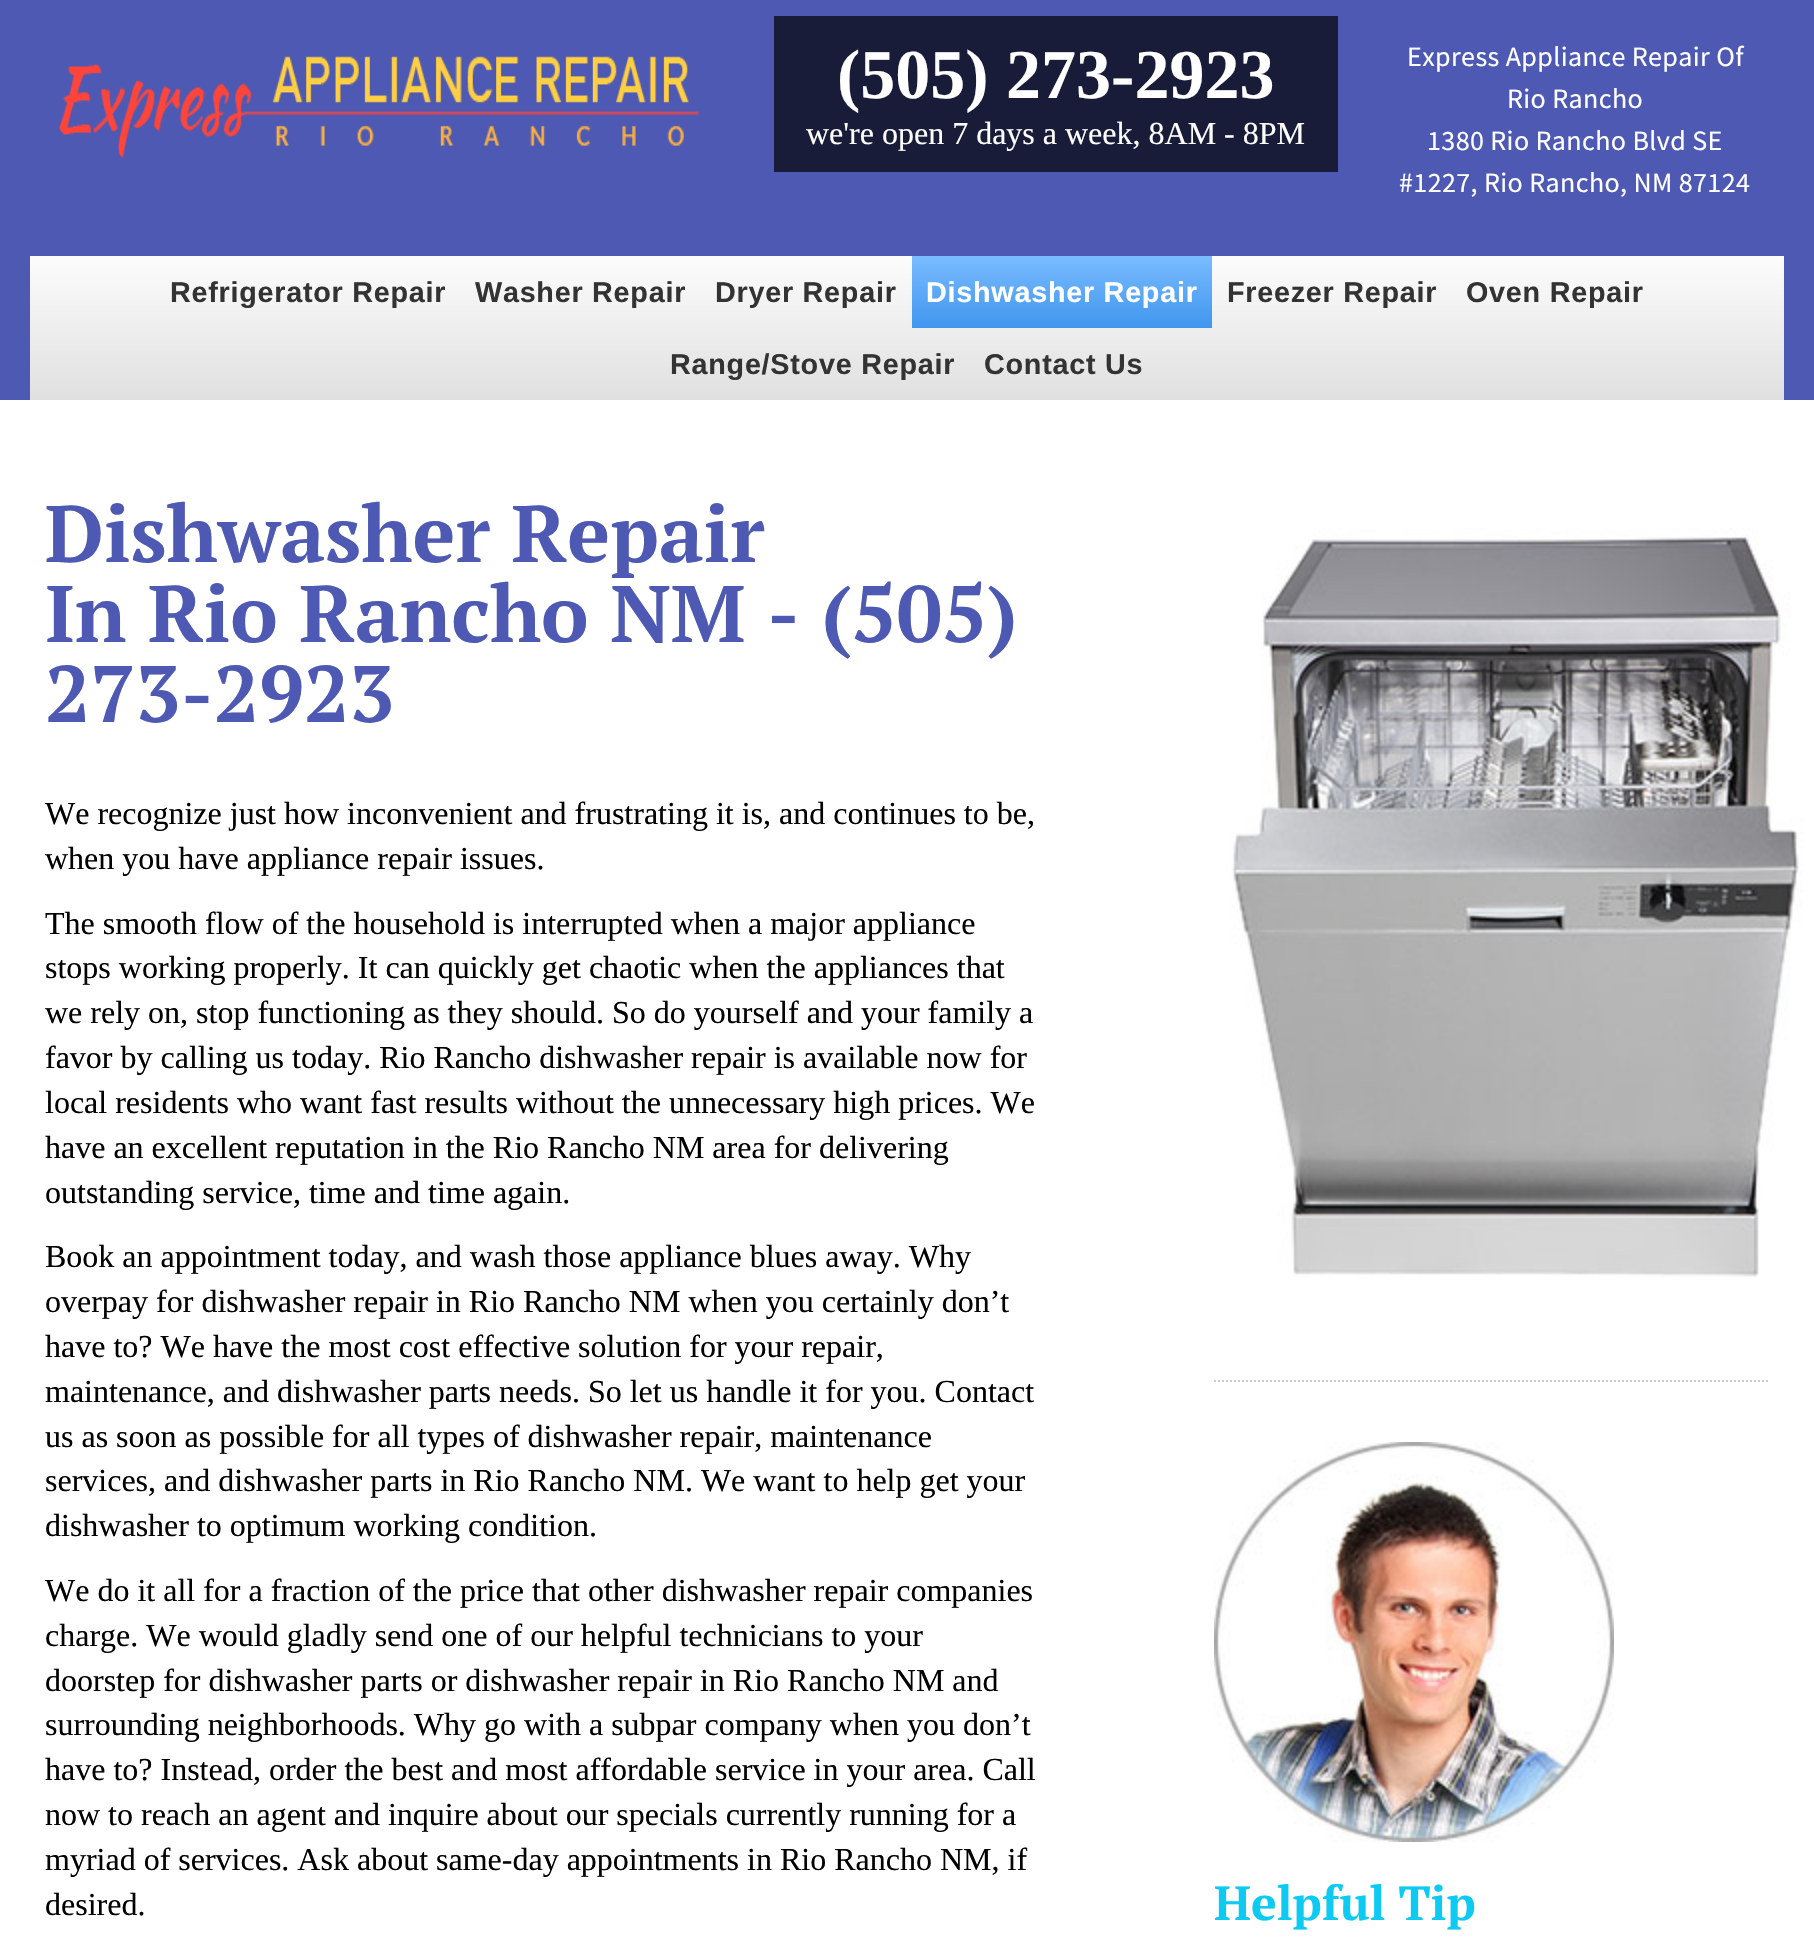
void draw(SkCanvas* canvas) {
    SkPaint paint;
    paint.setAntiAlias(true);
    auto face = [&](const char* family, int weight, float size, bool italic = false) {
        SkFontStyle style(weight, SkFontStyle::kNormal_Width,
            italic ? SkFontStyle::kItalic_Slant : SkFontStyle::kUpright_Slant);
        SkFont result(fontMgr->matchFamilyStyle(family, style), size);
        result.setSubpixel(true);
        return result;
    };
    auto write = [&](const char* s, float x, float y, const SkFont& font, SkColor color) {
        SkPaint ink(SkColor4f::FromColor(color));
        ink.setAntiAlias(true);
        canvas->drawString(s, x, y, font, ink);
    };
    auto writeSpaced = [&](const char* s, float x, float y, const SkFont& font, const SkPaint& ink, float letter, float word) {
        std::vector<SkGlyphID> glyphs(font.countText(s, strlen(s), SkTextEncoding::kUTF8));
        std::vector<float> xs(glyphs.size());
        font.textToGlyphs(s, strlen(s), SkTextEncoding::kUTF8, glyphs);
        font.getXPos(glyphs, xs, x);
        float extra = 0;
        for (size_t i = 0; i < glyphs.size(); i++) {
            xs[i] += extra;
            extra += letter + word * (glyphs[i] == font.unicharToGlyph(' '));
        }
        canvas->drawTextBlob(SkTextBlob::MakeFromPosHGlyphs(glyphs, xs, y, font), 0, 0, ink);
    };
    auto block = [&](float x, float y, float w, float h, SkColor color) {
        SkPaint ink(SkColor4f::FromColor(color));
        ink.setAntiAlias(true);
        canvas->drawRect(SkRect::MakeXYWH(x, y, w, h), ink);
    };
    auto paste = [&](const char* path, float x, float y, float w, float h) {
        auto image = SkImages::DeferredFromEncodedData(SkData::MakeFromFileName(path));
        canvas->drawImageRect(image, SkRect::MakeXYWH(x, y, w, h), SkSamplingOptions());
    };
    canvas->clear(SK_ColorWHITE);
    block(0, 0, 1814, 400, SkColorSetRGB(77, 89, 179));
    paste("pic1.png", 58, 56, 642, 103);
    block(774, 16, 564, 156, SkColorSetRGB(24, 28, 56));
    auto kFont1 = face("Liberation Serif", 700, 70);
    write("(505) 273-2923", 837, 98, kFont1, SK_ColorWHITE);
    auto kFont2 = face("Liberation Serif", 400, 32);
    write("we're open 7 days a week, 8AM - 8PM", 806, 144, kFont2, SK_ColorWHITE);
    auto kFont3 = face("Source Sans Pro", 400, 28);
    paint.setColor(SK_ColorWHITE);
    writeSpaced("Express Appliance Repair Of", 1407, 66, kFont3, paint, 0.4f, 0);
    writeSpaced("Rio Rancho", 1507, 108, kFont3, paint, 0.4f, 0);
    writeSpaced("1380 Rio Rancho Blvd SE", 1427, 150, kFont3, paint, 0.4f, 0);
    writeSpaced("#1227, Rio Rancho, NM 87124", 1399, 192, kFont3, paint, 0.4f, 0);
    {
        const SkColor colors[] = {SkColorSetRGB(252, 252, 252), SkColorSetRGB(224, 224, 224)};
        const float stops[] = {0, 1};
        const SkPoint ends[] = {{907, 256}, {907, 400}};
        paint.setShader(SkGradientShader::MakeLinear(ends, colors, stops, 2, SkTileMode::kClamp));
        paint.setAlpha(255);
    }
    canvas->drawRect(SkRect::MakeXYWH(30, 256, 1754, 144), paint);
    auto kFont4 = face("Liberation Sans", 700, 28.75f);
    paint.setShader(nullptr);
    paint.setColor(SkColorSetRGB(51, 51, 51));
    writeSpaced("Refrigerator Repair", 170, 302, kFont4, paint, 0.75f, 0);
    writeSpaced("Washer Repair", 475, 302, kFont4, paint, 0.75f, 0);
    writeSpaced("Dryer Repair", 715, 302, kFont4, paint, 0.75f, 0);
    {
        const SkColor colors[] = {SkColorSetRGB(122, 188, 255), SkColorSetRGB(96, 171, 248), SkColorSetRGB(64, 150, 238)};
        const float stops[] = {0, 0.44f, 1};
        const SkPoint ends[] = {{1062, 256}, {1062, 328}};
        paint.setShader(SkGradientShader::MakeLinear(ends, colors, stops, 3, SkTileMode::kClamp));
        paint.setAlpha(255);
    }
    canvas->drawRect(SkRect::MakeXYWH(912, 256, 300, 72), paint);
    paint.setShader(nullptr);
    paint.setColor(SK_ColorWHITE);
    writeSpaced("Dishwasher Repair", 926, 302, kFont4, paint, 0.75f, 0);
    paint.setColor(SkColorSetRGB(51, 51, 51));
    writeSpaced("Freezer Repair", 1227, 302, kFont4, paint, 0.75f, 0);
    writeSpaced("Oven Repair", 1466, 302, kFont4, paint, 0.75f, 0);
    writeSpaced("Range/Stove Repair", 670, 374, kFont4, paint, 0.75f, 0);
    writeSpaced("Contact Us", 984, 374, kFont4, paint, 0.75f, 0);
    auto kFont5 = face("PT Serif", 700, 80);
    write("Dishwasher Repair", 45, 562, kFont5, SkColorSetRGB(77, 89, 179));
    write("In Rio Rancho NM - (505)", 45, 642, kFont5, SkColorSetRGB(77, 89, 179));
    write("273-2923", 45, 722, kFont5, SkColorSetRGB(77, 89, 179));
    write("We recognize just how inconvenient and frustrating it is, and continues to be,", 45, 824, kFont2, SK_ColorBLACK);
    write("when you have appliance repair issues.", 45, 869, kFont2, SK_ColorBLACK);
    write("The smooth flow of the household is interrupted when a major appliance", 45, 934, kFont2, SK_ColorBLACK);
    write("stops working properly. It can quickly get chaotic when the appliances that", 45, 978, kFont2, SK_ColorBLACK);
    write("we rely on, stop functioning as they should. So do yourself and your family a", 45, 1023, kFont2, SK_ColorBLACK);
    write("favor by calling us today. Rio Rancho dishwasher repair is available now for", 45, 1068, kFont2, SK_ColorBLACK);
    write("local residents who want fast results without the unnecessary high prices. We", 45, 1113, kFont2, SK_ColorBLACK);
    write("have an excellent reputation in the Rio Rancho NM area for delivering", 45, 1158, kFont2, SK_ColorBLACK);
    write("outstanding service, time and time again.", 45, 1203, kFont2, SK_ColorBLACK);
    write("Book an appointment today, and wash those appliance blues away. Why", 45, 1267, kFont2, SK_ColorBLACK);
    write("overpay for dishwasher repair in Rio Rancho NM when you certainly don’t", 45, 1312, kFont2, SK_ColorBLACK);
    write("have to? We have the most cost effective solution for your repair,", 45, 1357, kFont2, SK_ColorBLACK);
    write("maintenance, and dishwasher parts needs. So let us handle it for you. Contact", 45, 1402, kFont2, SK_ColorBLACK);
    write("us as soon as possible for all types of dishwasher repair, maintenance", 45, 1447, kFont2, SK_ColorBLACK);
    write("services, and dishwasher parts in Rio Rancho NM. We want to help get your", 45, 1491, kFont2, SK_ColorBLACK);
    write("dishwasher to optimum working condition.", 45, 1536, kFont2, SK_ColorBLACK);
    write("We do it all for a fraction of the price that other dishwasher repair companies", 45, 1601, kFont2, SK_ColorBLACK);
    write("charge. We would gladly send one of our helpful technicians to your", 45, 1646, kFont2, SK_ColorBLACK);
    write("doorstep for dishwasher parts or dishwasher repair in Rio Rancho NM and", 45, 1691, kFont2, SK_ColorBLACK);
    write("surrounding neighborhoods. Why go with a subpar company when you don’t", 45, 1735, kFont2, SK_ColorBLACK);
    write("have to? Instead, order the best and most affordable service in your area. Call", 45, 1780, kFont2, SK_ColorBLACK);
    write("now to reach an agent and inquire about our specials currently running for a", 45, 1825, kFont2, SK_ColorBLACK);
    write("myriad of services. Ask about same-day appointments in Rio Rancho NM, if", 45, 1870, kFont2, SK_ColorBLACK);
    write("desired.", 45, 1915, kFont2, SK_ColorBLACK);
    paste("pic2.png", 1231, 528, 572, 749);
    paint.setStyle(SkPaint::kStroke_Style);
    paint.setStrokeWidth(2);
    paint.setColor(SkColorSetRGB(204, 204, 204));
    paint.setPathEffect(SkDashPathEffect::Make({{2, 2}}, 0));
    canvas->drawPath(SkPathBuilder().moveTo(1214, 1381).lineTo(1768, 1381).detach(), paint);
    paint.setPathEffect(nullptr);
    paste("pic3.png", 1214, 1442, 400, 400);
    auto kFont6 = face("PT Serif", 700, 48);
    write("Helpful Tip", 1214, 1920, kFont6, SkColorSetRGB(13, 202, 242));
}
